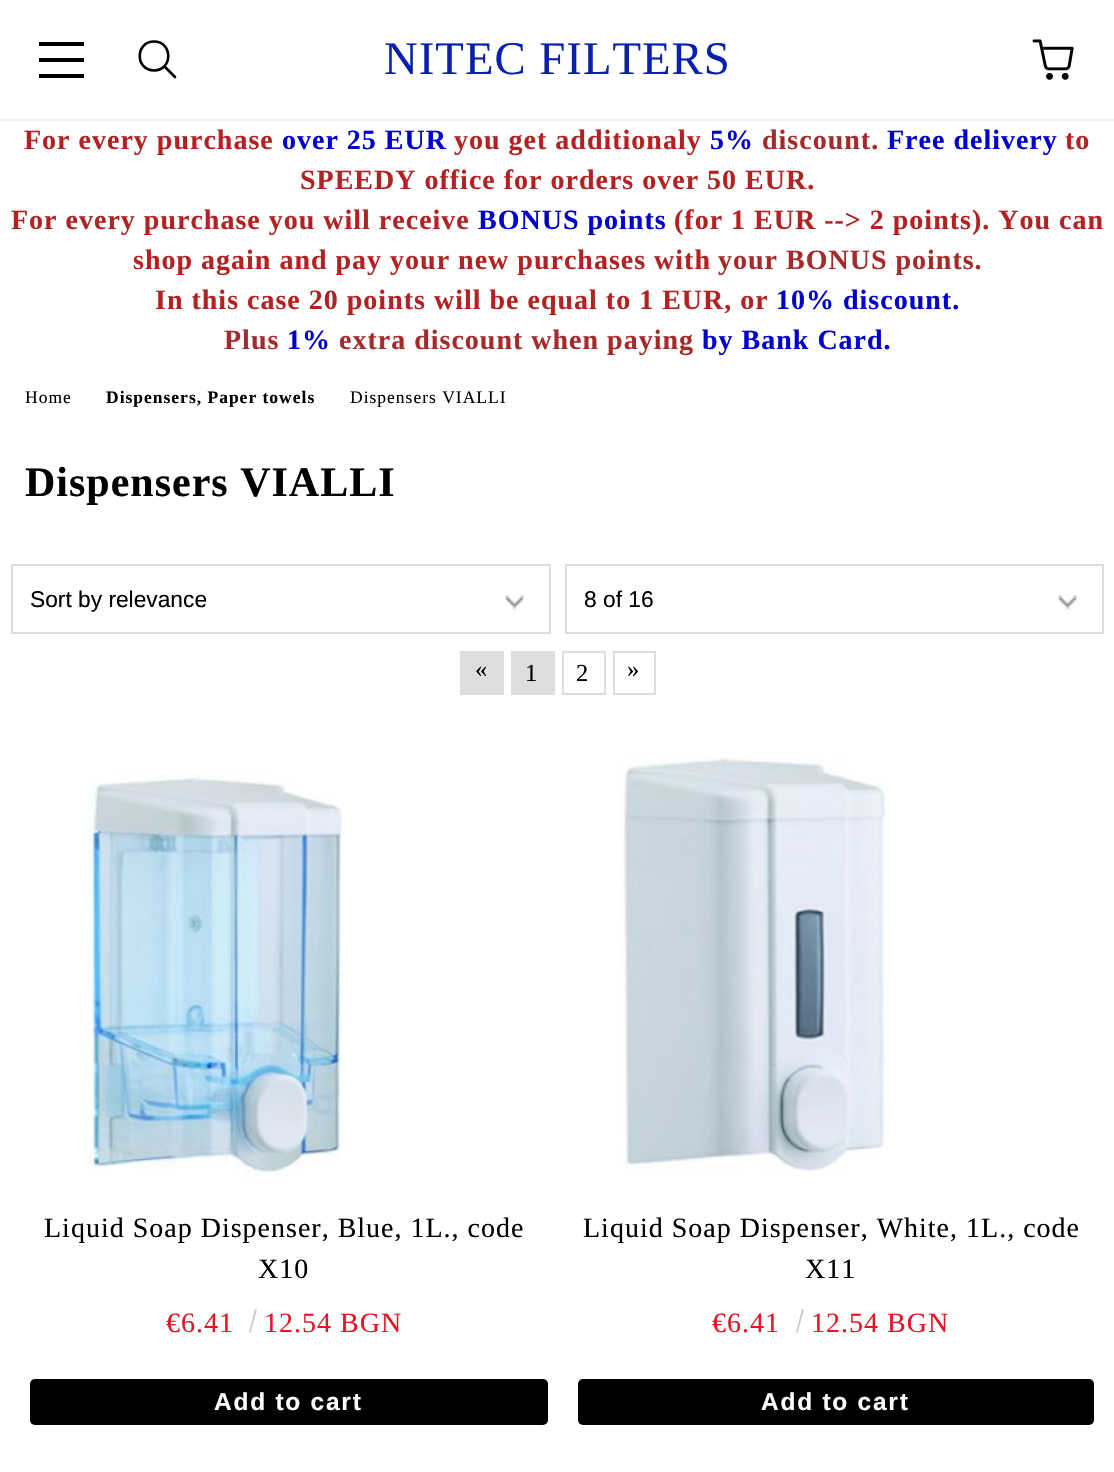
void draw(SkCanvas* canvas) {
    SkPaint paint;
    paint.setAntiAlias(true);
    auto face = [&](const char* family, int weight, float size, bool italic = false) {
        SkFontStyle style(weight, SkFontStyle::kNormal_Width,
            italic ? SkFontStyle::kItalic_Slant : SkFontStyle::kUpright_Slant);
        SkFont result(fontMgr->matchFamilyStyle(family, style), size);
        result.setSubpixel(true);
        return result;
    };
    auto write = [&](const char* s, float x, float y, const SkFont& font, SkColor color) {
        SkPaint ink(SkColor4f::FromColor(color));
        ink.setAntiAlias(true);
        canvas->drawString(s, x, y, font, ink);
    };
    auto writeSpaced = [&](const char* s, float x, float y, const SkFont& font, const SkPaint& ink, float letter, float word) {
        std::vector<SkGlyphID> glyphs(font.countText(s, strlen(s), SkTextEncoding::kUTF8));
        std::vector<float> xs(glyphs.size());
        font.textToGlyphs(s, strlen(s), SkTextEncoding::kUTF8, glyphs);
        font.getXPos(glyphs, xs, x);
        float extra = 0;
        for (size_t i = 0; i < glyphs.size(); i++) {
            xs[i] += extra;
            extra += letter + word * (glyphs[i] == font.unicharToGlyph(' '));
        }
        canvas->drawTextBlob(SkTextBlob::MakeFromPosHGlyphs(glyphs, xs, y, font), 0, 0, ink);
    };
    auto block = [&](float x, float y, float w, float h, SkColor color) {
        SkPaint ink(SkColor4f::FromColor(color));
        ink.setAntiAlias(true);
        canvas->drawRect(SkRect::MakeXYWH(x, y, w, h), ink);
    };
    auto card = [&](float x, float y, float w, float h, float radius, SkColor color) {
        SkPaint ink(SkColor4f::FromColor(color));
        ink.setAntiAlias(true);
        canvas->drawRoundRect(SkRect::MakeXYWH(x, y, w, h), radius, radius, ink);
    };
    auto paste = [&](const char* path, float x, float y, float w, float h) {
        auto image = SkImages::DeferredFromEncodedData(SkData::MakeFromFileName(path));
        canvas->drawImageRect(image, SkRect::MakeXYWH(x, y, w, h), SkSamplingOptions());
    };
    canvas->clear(SK_ColorWHITE);
    block(0, 119, 1114, 2, SkColorSetRGB(241, 241, 241));
    block(39, 42, 45, 4, SK_ColorBLACK);
    block(39, 58, 45, 4, SK_ColorBLACK);
    block(39, 74, 45, 4, SK_ColorBLACK);
    paint.setStyle(SkPaint::kStroke_Style);
    paint.setStrokeWidth(2.6f);
    paint.setColor(SK_ColorBLACK);
    canvas->drawPath(SkPathBuilder().moveTo(154, 41.5f).cubicTo(135, 41.5f, 135, 70.5f, 154, 70.5f).cubicTo(173, 70.5f, 173, 41.5f, 154, 41.5f).close().detach(), paint);
    paint.setStrokeCap(SkPaint::kRound_Cap);
    canvas->drawPath(SkPathBuilder().moveTo(165, 67).lineTo(175, 77).detach(), paint);
    auto kFont1 = face("Liberation Serif", 400, 46.75f);
    paint.setStyle(SkPaint::kFill_Style);
    paint.setColor(SkColorSetRGB(7, 32, 173));
    writeSpaced("NITEC FILTERS", 384, 74, kFont1, paint, 1, 0);
    paste("pic1.png", 1032, 39, 42, 41);
    auto kFont2 = face("Liberation Serif", 700, 28);
    paint.setColor(SkColorSetRGB(178, 34, 34));
    writeSpaced("For every purchase", 24, 149, kFont2, paint, 1, 0);
    paint.setColor(SkColorSetRGB(0, 0, 205));
    writeSpaced("over 25 EUR", 282, 149, kFont2, paint, 1, 0);
    paint.setColor(SkColorSetRGB(178, 34, 34));
    writeSpaced("you get additionaly", 454, 149, kFont2, paint, 1, 0);
    paint.setColor(SkColorSetRGB(0, 0, 205));
    writeSpaced("5%", 710, 149, kFont2, paint, 1, 0);
    paint.setColor(SkColorSetRGB(165, 42, 42));
    writeSpaced("discount.", 762, 149, kFont2, paint, 1, 0);
    paint.setColor(SkColorSetRGB(0, 0, 205));
    writeSpaced("Free delivery", 887, 149, kFont2, paint, 1, 0);
    paint.setColor(SkColorSetRGB(178, 34, 34));
    writeSpaced("to", 1065, 149, kFont2, paint, 1, 0);
    writeSpaced("SPEEDY office for orders over 50 EUR.", 300, 189, kFont2, paint, 1, 0);
    writeSpaced("For every purchase you will receive", 11, 229, kFont2, paint, 1, 0);
    paint.setColor(SkColorSetRGB(0, 0, 205));
    writeSpaced("BONUS points", 478, 229, kFont2, paint, 1, 0);
    paint.setColor(SkColorSetRGB(178, 34, 34));
    writeSpaced("(for 1 EUR --> 2 points). You can", 674, 229, kFont2, paint, 1, 0);
    writeSpaced("shop again and pay your new purchases with", 133, 269, kFont2, paint, 1, 0);
    paint.setColor(SkColorSetRGB(165, 42, 42));
    writeSpaced("your BONUS points.", 718, 269, kFont2, paint, 1, 0);
    paint.setColor(SkColorSetRGB(178, 34, 34));
    writeSpaced("In this case 20 points will be equal to 1 EUR, or", 155, 309, kFont2, paint, 1, 0);
    paint.setColor(SkColorSetRGB(0, 0, 205));
    writeSpaced("10% discount.", 776, 309, kFont2, paint, 1, 0);
    paint.setColor(SkColorSetRGB(165, 42, 42));
    writeSpaced("Plus", 224, 349, kFont2, paint, 1, 0);
    paint.setColor(SkColorSetRGB(0, 0, 205));
    writeSpaced("1%", 287, 349, kFont2, paint, 1, 0);
    paint.setColor(SkColorSetRGB(165, 42, 42));
    writeSpaced("extra discount when paying", 339, 349, kFont2, paint, 1, 0);
    paint.setColor(SkColorSetRGB(0, 0, 205));
    writeSpaced("by Bank Card.", 702, 349, kFont2, paint, 1, 0);
    auto kFont3 = face("Liberation Serif", 400, 17.5f);
    paint.setColor(SK_ColorBLACK);
    writeSpaced("Home", 25, 403, kFont3, paint, 1, 0);
    auto kFont4 = face("Liberation Serif", 700, 17.5f);
    writeSpaced("Dispensers, Paper towels", 106, 403, kFont4, paint, 1, 0);
    writeSpaced("Dispensers VIALLI", 350, 403, kFont3, paint, 1, 0);
    auto kFont5 = face("Liberation Serif", 700, 42);
    writeSpaced("Dispensers VIALLI", 25, 496, kFont5, paint, 1, 0);
    paste("pic2.png", 505, 594, 19, 16);
    paint.setStyle(SkPaint::kStroke_Style);
    paint.setStrokeWidth(2);
    paint.setStrokeCap(SkPaint::kButt_Cap);
    paint.setColor(SkColorSetRGB(221, 221, 221));
    canvas->drawRect(SkRect::MakeXYWH(12, 565, 538, 68), paint);
    auto kFont6 = face("Liberation Sans", 400, 22.75f);
    write("Sort by relevance", 30, 607, kFont6, SK_ColorBLACK);
    paste("pic2.png", 1058, 594, 19, 16);
    canvas->drawRect(SkRect::MakeXYWH(566, 565, 537, 68), paint);
    canvas->save();
    canvas->clipRect(SkRect::MakeXYWH(585, 586, 500, 27));
    write("8 of 16", 584, 607, kFont6, SK_ColorBLACK);
    canvas->restore();
    block(460, 651, 44, 44, SkColorSetRGB(221, 221, 221));
    auto kFont7 = face("Liberation Serif", 400, 24.5f);
    paint.setStyle(SkPaint::kFill_Style);
    paint.setColor(SK_ColorBLACK);
    writeSpaced("«", 475, 677, kFont7, paint, 1, 0);
    block(511, 651, 44, 44, SkColorSetRGB(221, 221, 221));
    writeSpaced("1", 525, 681, kFont7, paint, 1, 0);
    paint.setStyle(SkPaint::kStroke_Style);
    paint.setColor(SkColorSetRGB(221, 221, 221));
    canvas->drawRect(SkRect::MakeXYWH(563, 652, 42, 42), paint);
    paint.setStyle(SkPaint::kFill_Style);
    paint.setColor(SK_ColorBLACK);
    writeSpaced("2", 576, 681, kFont7, paint, 1, 0);
    paint.setStyle(SkPaint::kStroke_Style);
    paint.setColor(SkColorSetRGB(221, 221, 221));
    canvas->drawRect(SkRect::MakeXYWH(614, 652, 41, 42), paint);
    paint.setStyle(SkPaint::kFill_Style);
    paint.setColor(SK_ColorBLACK);
    writeSpaced("»", 627, 677, kFont7, paint, 1, 0);
    paste("pic3.png", 84, 773, 258, 404);
    auto kFont8 = face("Liberation Serif", 400, 28);
    writeSpaced("Liquid Soap Dispenser, Blue, 1L., code", 44, 1237, kFont8, paint, 1, 0);
    writeSpaced("X10", 258, 1278, kFont8, paint, 1, 0);
    paint.setColor(SkColorSetRGB(232, 18, 37));
    writeSpaced("€6.41", 166, 1332, kFont8, paint, 1, 0);
    paint.setColor(SkColorSetRGB(203, 203, 203));
    canvas->drawPath(SkPathBuilder().moveTo(255, 1309).lineTo(257, 1309.5f).lineTo(250.5f, 1333).lineTo(249, 1332.5f).close().detach(), paint);
    paint.setColor(SkColorSetRGB(232, 18, 37));
    writeSpaced("12.54 BGN", 264, 1332, kFont8, paint, 1, 0);
    card(30, 1379, 518, 46, 5, SK_ColorBLACK);
    auto kFont9 = face("Liberation Sans", 700, 24.5f);
    paint.setColor(SK_ColorWHITE);
    writeSpaced("Add to cart", 214, 1410, kFont9, paint, 1.75f, 0);
    paste("pic4.png", 617, 757, 269, 414);
    paint.setColor(SK_ColorBLACK);
    writeSpaced("Liquid Soap Dispenser, White, 1L., code", 583, 1237, kFont8, paint, 1, 0);
    writeSpaced("X11", 805, 1278, kFont8, paint, 1, 0);
    paint.setColor(SkColorSetRGB(232, 18, 37));
    writeSpaced("€6.41", 712, 1332, kFont8, paint, 1, 0);
    paint.setColor(SkColorSetRGB(203, 203, 203));
    canvas->drawPath(SkPathBuilder().moveTo(802, 1309).lineTo(804, 1309.5f).lineTo(797.5f, 1333).lineTo(796, 1332.5f).close().detach(), paint);
    paint.setColor(SkColorSetRGB(232, 18, 37));
    writeSpaced("12.54 BGN", 811, 1332, kFont8, paint, 1, 0);
    card(578, 1379, 516, 46, 5, SK_ColorBLACK);
    paint.setColor(SK_ColorWHITE);
    writeSpaced("Add to cart", 761, 1410, kFont9, paint, 1.75f, 0);
}
